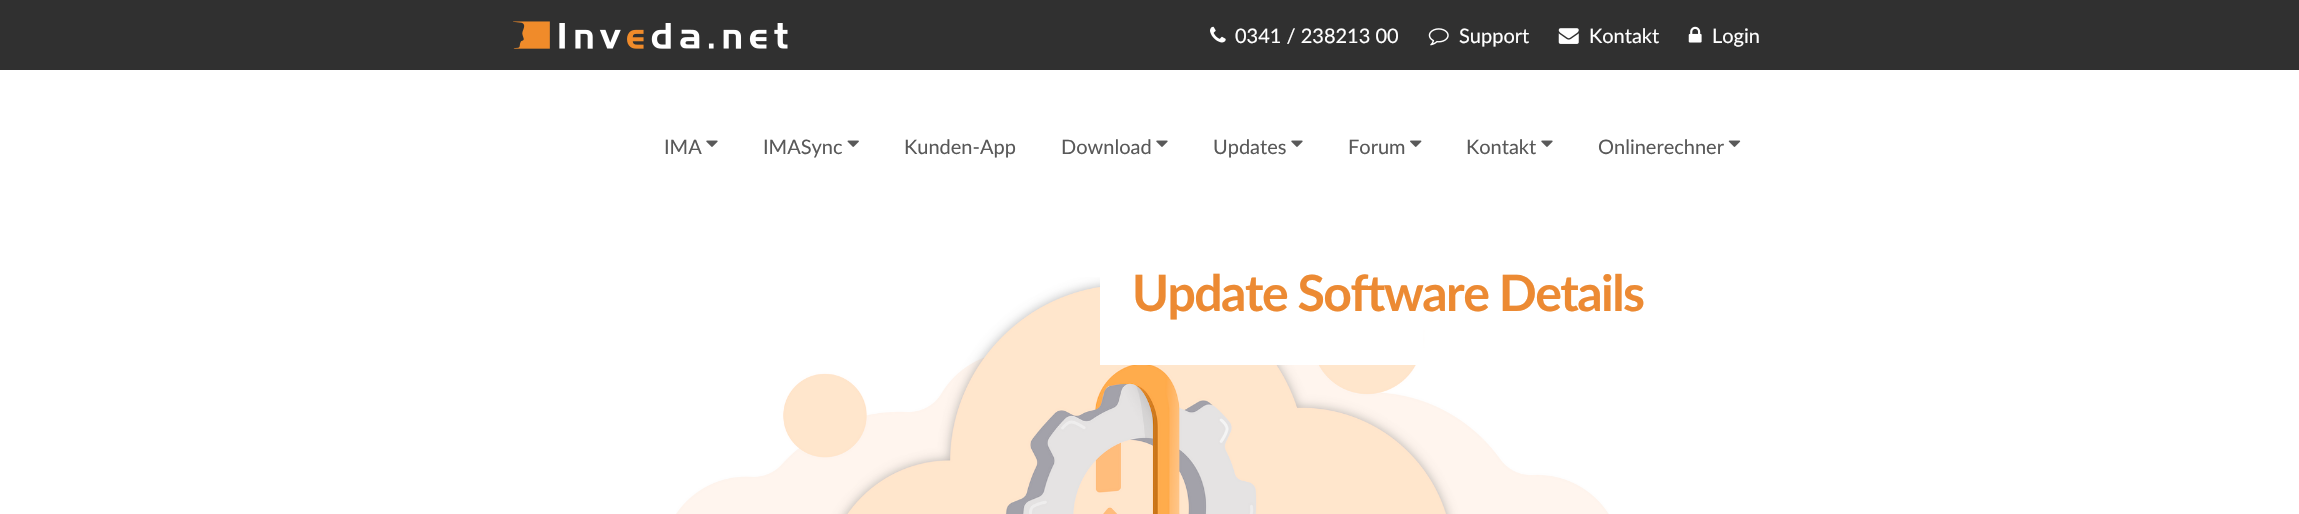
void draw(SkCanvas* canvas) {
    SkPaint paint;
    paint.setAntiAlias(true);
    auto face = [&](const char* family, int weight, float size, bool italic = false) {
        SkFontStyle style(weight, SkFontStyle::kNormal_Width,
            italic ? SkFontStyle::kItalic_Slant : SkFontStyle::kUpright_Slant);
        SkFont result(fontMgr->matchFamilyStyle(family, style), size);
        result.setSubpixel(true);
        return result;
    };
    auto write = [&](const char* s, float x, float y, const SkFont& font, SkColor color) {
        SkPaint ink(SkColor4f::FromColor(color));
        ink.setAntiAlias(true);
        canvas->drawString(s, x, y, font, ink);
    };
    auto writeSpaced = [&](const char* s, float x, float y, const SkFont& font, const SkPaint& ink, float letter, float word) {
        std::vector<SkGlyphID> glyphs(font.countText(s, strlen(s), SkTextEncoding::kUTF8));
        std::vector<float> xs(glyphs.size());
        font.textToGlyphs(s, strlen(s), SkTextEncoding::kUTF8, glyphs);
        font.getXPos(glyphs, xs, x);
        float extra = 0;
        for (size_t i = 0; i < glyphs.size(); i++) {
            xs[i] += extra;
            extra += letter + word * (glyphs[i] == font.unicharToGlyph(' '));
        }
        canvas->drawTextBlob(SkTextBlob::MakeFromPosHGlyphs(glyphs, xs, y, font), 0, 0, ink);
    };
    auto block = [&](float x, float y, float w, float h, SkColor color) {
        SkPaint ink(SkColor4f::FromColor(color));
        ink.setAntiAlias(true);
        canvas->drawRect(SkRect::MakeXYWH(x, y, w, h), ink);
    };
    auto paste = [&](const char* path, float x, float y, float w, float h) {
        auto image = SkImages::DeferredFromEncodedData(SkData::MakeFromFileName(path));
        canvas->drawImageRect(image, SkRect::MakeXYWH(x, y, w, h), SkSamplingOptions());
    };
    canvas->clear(SK_ColorWHITE);
    block(0, 0, 2299, 70, SkColorSetRGB(48, 48, 48));
    paste("pic1.png", 513, 21, 275, 28);
    paste("pic2.png", 1210, 26, 16, 17);
    auto kFont1 = face("Lato", 400, 20);
    write("0341 / 238213 00", 1235, 43, kFont1, SK_ColorWHITE);
    paste("pic3.png", 1428, 28, 21, 18);
    write("Support", 1459, 43, kFont1, SK_ColorWHITE);
    paste("pic4.png", 1558, 28, 21, 16);
    write("Kontakt", 1589, 43, kFont1, SK_ColorWHITE);
    paste("pic5.png", 1688, 26, 14, 17);
    write("Login", 1712, 43, kFont1, SK_ColorWHITE);
    write("IMA", 664, 154, kFont1, SkColorSetRGB(89, 89, 89));
    paste("pic6.png", 706, 140, 12, 7);
    write("IMASync", 763, 154, kFont1, SkColorSetRGB(89, 89, 89));
    paste("pic7.png", 847, 140, 12, 7);
    write("Kunden-App", 904, 154, kFont1, SkColorSetRGB(89, 89, 89));
    write("Download", 1061, 154, kFont1, SkColorSetRGB(89, 89, 89));
    paste("pic6.png", 1156, 140, 12, 7);
    write("Updates", 1213, 154, kFont1, SkColorSetRGB(89, 89, 89));
    paste("pic6.png", 1291, 140, 12, 7);
    write("Forum", 1348, 154, kFont1, SkColorSetRGB(89, 89, 89));
    paste("pic8.png", 1410, 140, 12, 7);
    write("Kontakt", 1466, 154, kFont1, SkColorSetRGB(89, 89, 89));
    paste("pic6.png", 1541, 140, 12, 7);
    write("Onlinerechner", 1598, 154, kFont1, SkColorSetRGB(89, 89, 89));
    paste("pic9.png", 1728, 140, 13, 7);
    paste("pic10.png", 676, 277, 933, 237);
    block(1100, 277, 323, 88, SK_ColorWHITE);
    auto kFont2 = face("Lato", 700, 50);
    paint.setColor(SkColorSetRGB(236, 138, 51));
    writeSpaced("Update Software Details", 1132, 311, kFont2, paint, -1.6f, 0);
}
